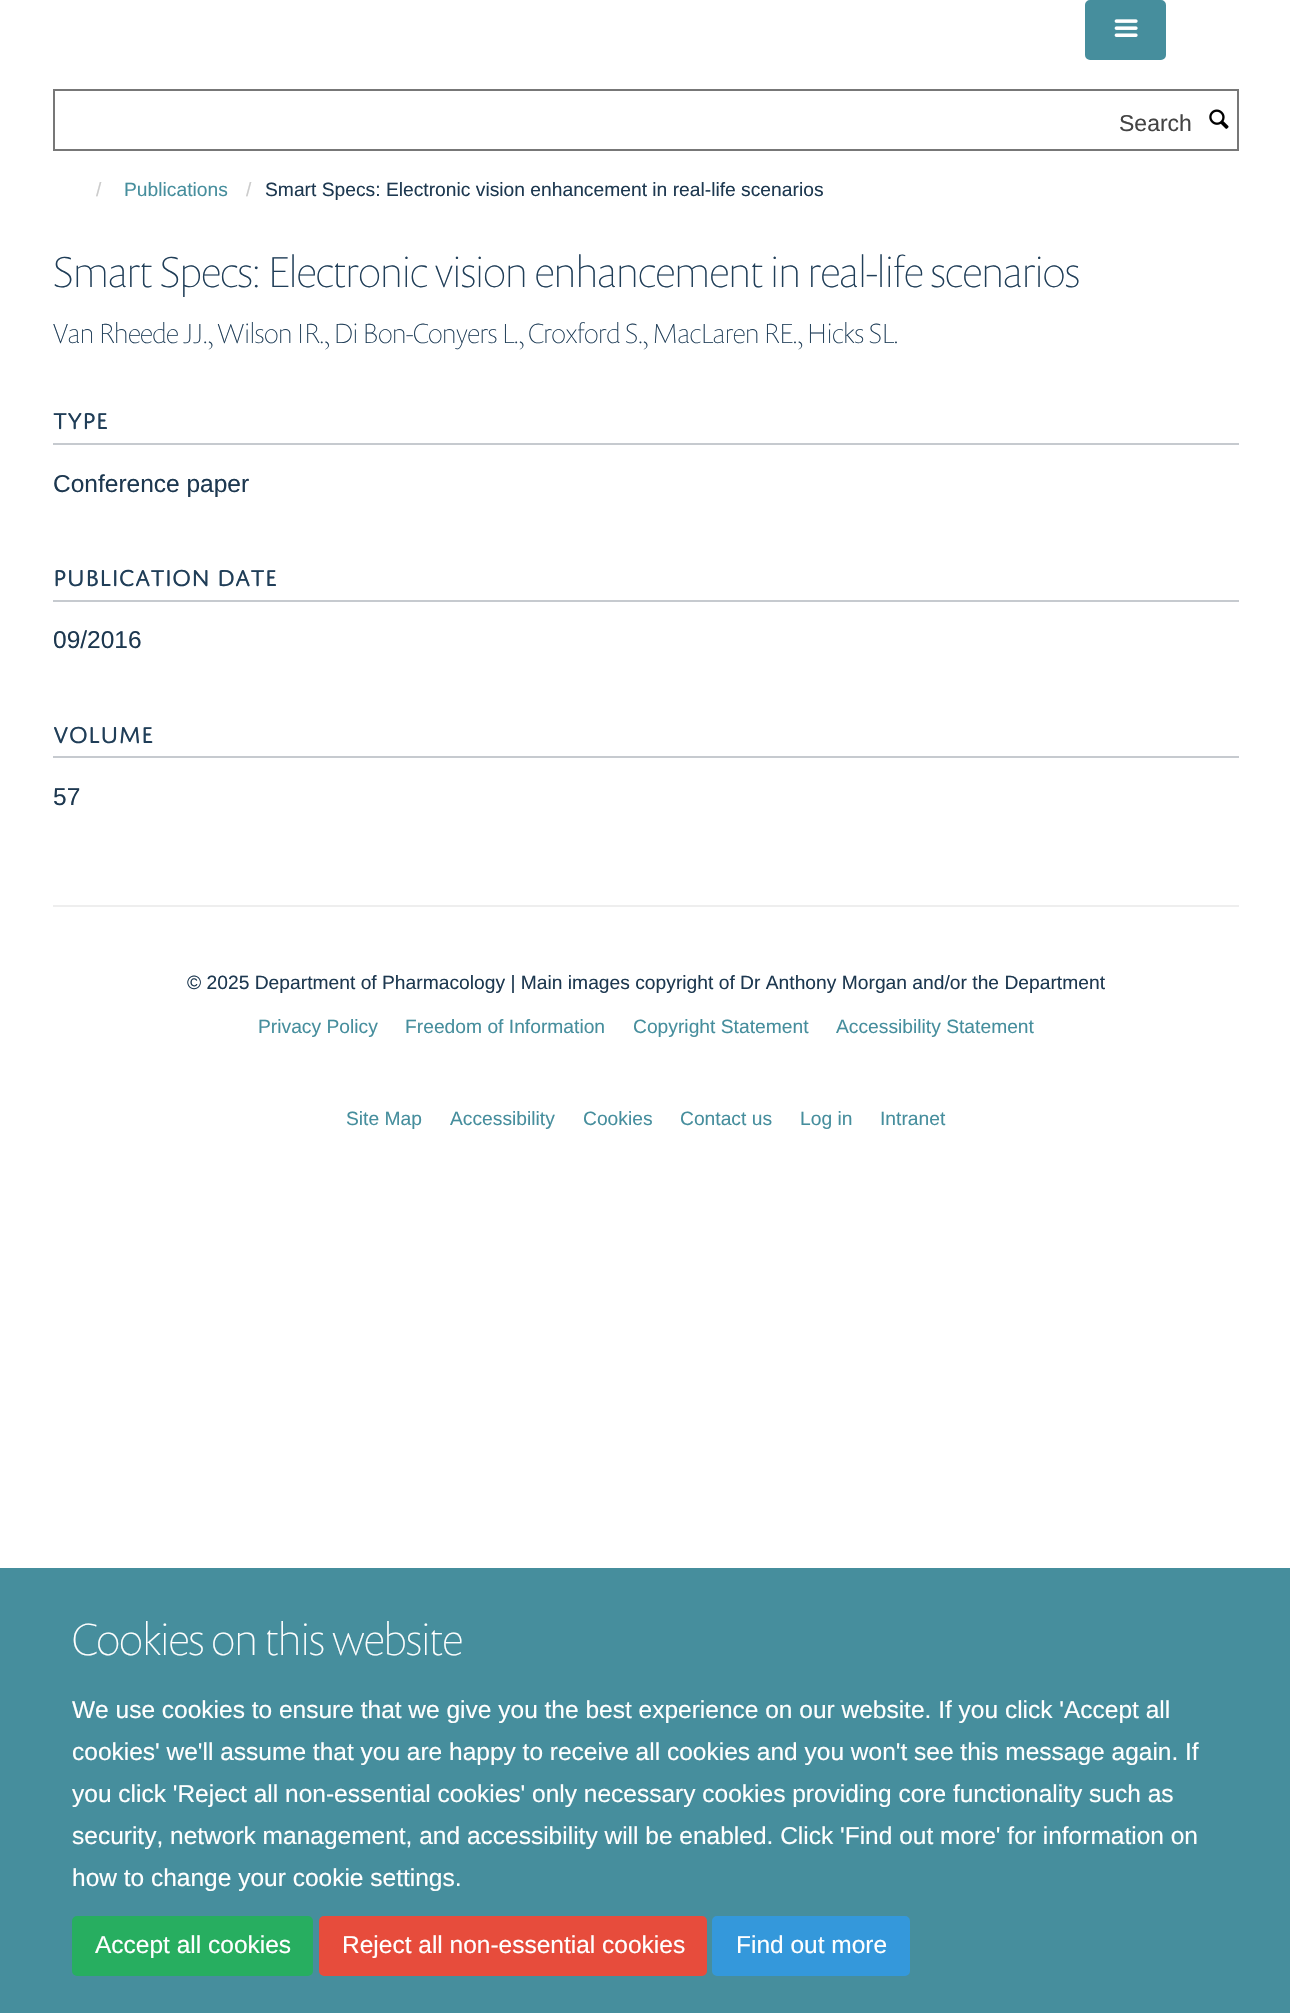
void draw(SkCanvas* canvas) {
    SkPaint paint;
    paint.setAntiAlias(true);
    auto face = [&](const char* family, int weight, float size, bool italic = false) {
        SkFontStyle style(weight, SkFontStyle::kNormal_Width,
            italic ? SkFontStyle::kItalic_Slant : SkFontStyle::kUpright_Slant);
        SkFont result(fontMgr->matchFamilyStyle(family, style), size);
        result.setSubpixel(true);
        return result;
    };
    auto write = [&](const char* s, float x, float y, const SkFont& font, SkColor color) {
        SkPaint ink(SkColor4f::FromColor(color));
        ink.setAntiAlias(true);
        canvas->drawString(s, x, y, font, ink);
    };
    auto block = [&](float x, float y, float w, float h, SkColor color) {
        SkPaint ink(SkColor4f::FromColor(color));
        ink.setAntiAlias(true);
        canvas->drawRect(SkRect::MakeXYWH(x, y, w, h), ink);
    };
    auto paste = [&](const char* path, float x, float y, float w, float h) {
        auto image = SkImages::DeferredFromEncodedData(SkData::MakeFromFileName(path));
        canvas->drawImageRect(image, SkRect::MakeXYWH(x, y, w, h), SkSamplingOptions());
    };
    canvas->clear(SK_ColorWHITE);
    paint.setColor(SkColorSetRGB(70, 142, 157));
    canvas->drawRoundRect(SkRect::MakeXYWH(1086, 1, 79, 58), 4, 4, paint);
    paint.setStyle(SkPaint::kStroke_Style);
    paint.setStrokeWidth(2);
    canvas->drawRoundRect(SkRect::MakeXYWH(1086, 1, 79, 58), 4, 4, paint);
    paste("pic1.png", 1114, 19, 24, 18);
    paint.setColor(SkColorSetRGB(119, 119, 119));
    canvas->drawRect(SkRect::MakeXYWH(54, 90, 1184, 60), paint);
    auto kFont1 = face("Liberation Sans", 400, 23);
    write("Search", 1119, 131, kFont1, SkColorSetRGB(68, 68, 68));
    paste("pic2.png", 1209, 109, 20, 20);
    auto kFont2 = face("Liberation Sans", 400, 19.25f);
    write("/", 96, 196, kFont2, SkColorSetRGB(204, 204, 204));
    write("Publications", 124, 196, kFont2, SkColorSetRGB(70, 142, 157));
    write("/", 246, 196, kFont2, SkColorSetRGB(204, 204, 204));
    write("Smart Specs: Electronic vision enhancement in real-life scenarios", 265, 196, kFont2, SkColorSetRGB(29, 56, 80));
    auto kFont3 = face("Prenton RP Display", 100, 43.75f);
    write("Smart Specs: Electronic vision enhancement in real-life scenarios", 53, 287, kFont3, SkColorSetRGB(32, 62, 88));
    auto kFont4 = face("Prenton RP Display", 100, 28);
    write("Van Rheede JJ., Wilson IR., Di Bon-Conyers L., Croxford S., MacLaren RE., Hicks SL.", 53, 343, kFont4, SkColorSetRGB(32, 62, 88));
    block(53, 443, 1186, 2, SkColorSetRGB(198, 202, 207));
    auto kFont5 = face("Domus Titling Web", 400, 24.5f);
    write("TYPE", 53, 429, kFont5, SkColorSetRGB(32, 62, 88));
    auto kFont6 = face("Liberation Sans", 400, 24.5f);
    write("Conference paper", 53, 492, kFont6, SkColorSetRGB(29, 56, 80));
    block(53, 600, 1186, 2, SkColorSetRGB(198, 202, 207));
    write("PUBLICATION DATE", 53, 586, kFont5, SkColorSetRGB(32, 62, 88));
    write("09/2016", 53, 648, kFont6, SkColorSetRGB(29, 56, 80));
    block(53, 756, 1186, 2, SkColorSetRGB(198, 202, 207));
    write("VOLUME", 53, 743, kFont5, SkColorSetRGB(32, 62, 88));
    write("57", 53, 805, kFont6, SkColorSetRGB(29, 56, 80));
    block(53, 905, 1186, 2, SkColorSetRGB(238, 238, 238));
    write("© 2025 Department of Pharmacology | Main images copyright of Dr Anthony Morgan and/or the Department", 187, 989, kFont2, SkColorSetRGB(29, 56, 80));
    write("Privacy Policy", 258, 1033, kFont2, SkColorSetRGB(70, 142, 157));
    write("Freedom of Information", 405, 1033, kFont2, SkColorSetRGB(70, 142, 157));
    write("Copyright Statement", 633, 1033, kFont2, SkColorSetRGB(70, 142, 157));
    write("Accessibility Statement", 836, 1033, kFont2, SkColorSetRGB(70, 142, 157));
    write("Site Map", 346, 1125, kFont2, SkColorSetRGB(70, 142, 157));
    write("Accessibility", 450, 1125, kFont2, SkColorSetRGB(70, 142, 157));
    write("Cookies", 583, 1125, kFont2, SkColorSetRGB(70, 142, 157));
    write("Contact us", 680, 1125, kFont2, SkColorSetRGB(70, 142, 157));
    write("Log in", 800, 1125, kFont2, SkColorSetRGB(70, 142, 157));
    write("Intranet", 880, 1125, kFont2, SkColorSetRGB(70, 142, 157));
    block(0, 1568, 1290, 445, SkColorSetRGB(70, 142, 157));
    auto kFont7 = face("Prenton RP Display", 100, 45.5f);
    write("Cookies on this website", 72, 1655, kFont7, SK_ColorWHITE);
    write("We use cookies to ensure that we give you the best experience on our website. If you click 'Accept all", 72, 1718, kFont6, SK_ColorWHITE);
    write("cookies' we'll assume that you are happy to receive all cookies and you won't see this message again. If", 72, 1760, kFont6, SK_ColorWHITE);
    write("you click 'Reject all non-essential cookies' only necessary cookies providing core functionality such as", 72, 1802, kFont6, SK_ColorWHITE);
    write("security, network management, and accessibility will be enabled. Click 'Find out more' for information on", 72, 1844, kFont6, SK_ColorWHITE);
    write("how to change your cookie settings.", 72, 1886, kFont6, SK_ColorWHITE);
    paint.setStyle(SkPaint::kFill_Style);
    paint.setColor(SkColorSetRGB(39, 174, 96));
    canvas->drawRoundRect(SkRect::MakeXYWH(73, 1917, 239, 58), 4, 4, paint);
    paint.setStyle(SkPaint::kStroke_Style);
    canvas->drawRoundRect(SkRect::MakeXYWH(73, 1917, 239, 58), 4, 4, paint);
    write("Accept all cookies", 95, 1953, kFont6, SK_ColorWHITE);
    paint.setStyle(SkPaint::kFill_Style);
    paint.setColor(SkColorSetRGB(231, 76, 60));
    canvas->drawRoundRect(SkRect::MakeXYWH(320, 1917, 386, 58), 4, 4, paint);
    paint.setStyle(SkPaint::kStroke_Style);
    canvas->drawRoundRect(SkRect::MakeXYWH(320, 1917, 386, 58), 4, 4, paint);
    write("Reject all non-essential cookies", 342, 1953, kFont6, SK_ColorWHITE);
    paint.setStyle(SkPaint::kFill_Style);
    paint.setColor(SkColorSetRGB(52, 152, 219));
    canvas->drawRoundRect(SkRect::MakeXYWH(713, 1917, 196, 58), 4, 4, paint);
    paint.setStyle(SkPaint::kStroke_Style);
    canvas->drawRoundRect(SkRect::MakeXYWH(713, 1917, 196, 58), 4, 4, paint);
    write("Find out more", 736, 1953, kFont6, SK_ColorWHITE);
}
